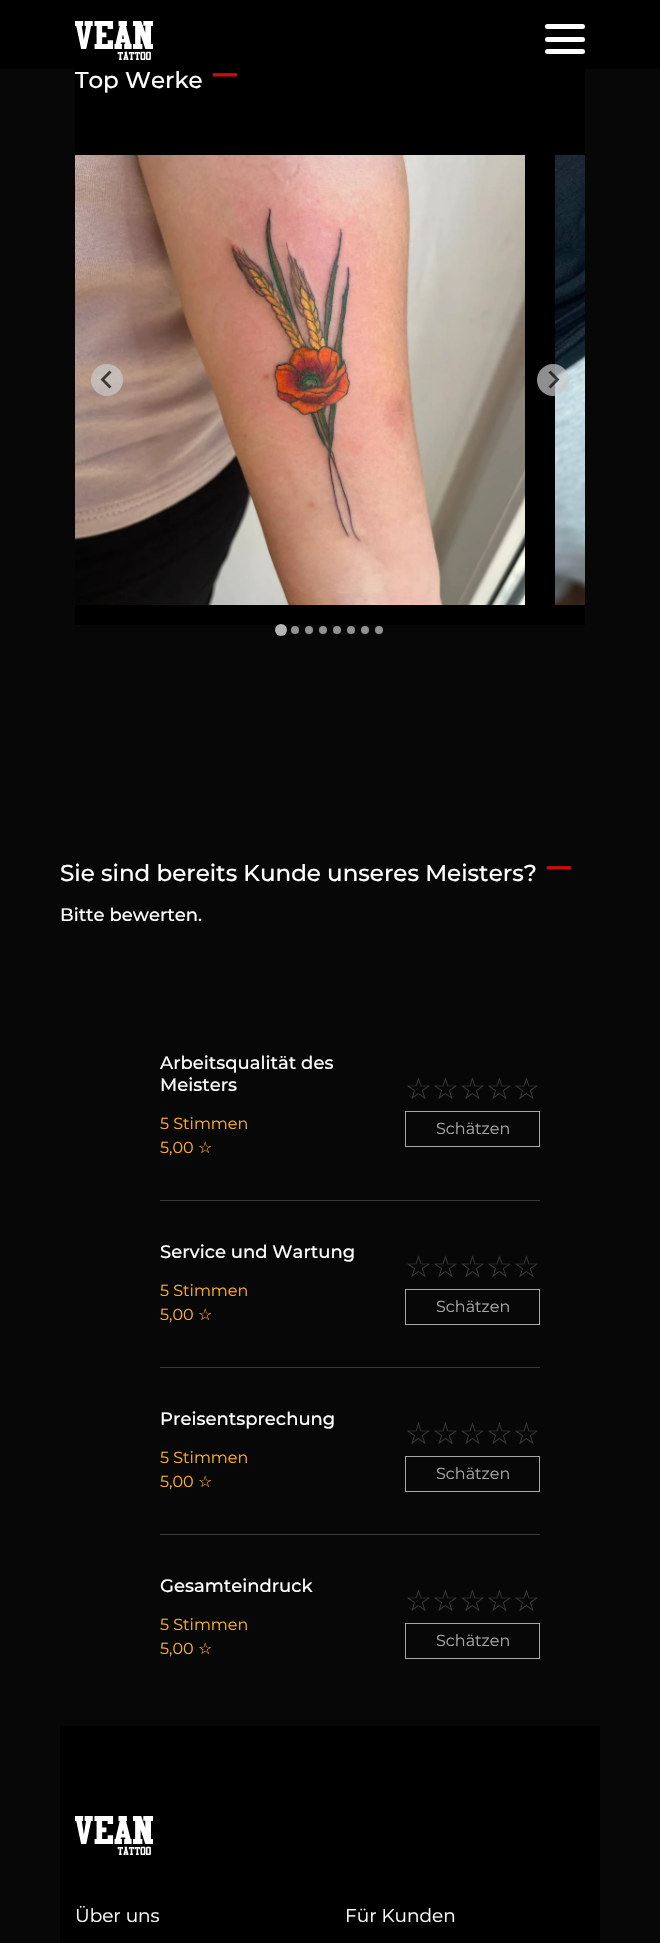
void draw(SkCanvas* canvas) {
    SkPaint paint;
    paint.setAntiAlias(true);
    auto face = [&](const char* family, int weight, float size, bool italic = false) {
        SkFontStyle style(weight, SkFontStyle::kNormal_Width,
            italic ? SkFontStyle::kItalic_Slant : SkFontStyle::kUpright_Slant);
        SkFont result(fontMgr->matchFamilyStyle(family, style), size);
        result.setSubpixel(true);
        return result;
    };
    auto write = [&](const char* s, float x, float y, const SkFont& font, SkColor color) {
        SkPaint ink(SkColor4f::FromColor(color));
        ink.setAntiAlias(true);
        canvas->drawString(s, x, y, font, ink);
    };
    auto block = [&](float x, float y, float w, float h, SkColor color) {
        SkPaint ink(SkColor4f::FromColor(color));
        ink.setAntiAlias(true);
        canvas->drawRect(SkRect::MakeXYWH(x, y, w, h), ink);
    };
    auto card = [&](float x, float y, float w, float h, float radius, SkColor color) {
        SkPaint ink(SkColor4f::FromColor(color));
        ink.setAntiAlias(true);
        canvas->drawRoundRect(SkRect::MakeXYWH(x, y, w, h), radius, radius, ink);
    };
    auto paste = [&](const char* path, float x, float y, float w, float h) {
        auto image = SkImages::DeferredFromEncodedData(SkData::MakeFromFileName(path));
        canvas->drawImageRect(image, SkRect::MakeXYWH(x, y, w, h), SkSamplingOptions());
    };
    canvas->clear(SkColorSetRGB(7, 7, 7));
    block(0, 0, 660, 69, SK_ColorBLACK);
    paste("pic1.png", 75, 21, 78, 39);
    card(545, 24, 40, 5, 2.5f, SK_ColorWHITE);
    card(545, 37, 40, 5, 2.5f, SK_ColorWHITE);
    card(545, 49, 40, 5, 2.5f, SK_ColorWHITE);
    block(75, 69, 510, 556, SK_ColorBLACK);
    auto kFont1 = face("Montserrat", 500, 23);
    write("Top Werke", 75, 88, kFont1, SK_ColorWHITE);
    auto kFont2 = face("Montserrat", 500, 48);
    write("–", 213, 88, kFont2, SkColorSetRGB(206, 11, 11));
    paste("pic2.png", 75, 155, 450, 450);
    paste("pic3.png", 555, 155, 30, 450);
    paint.setColor(SkColorSetARGB(179, 204, 204, 204));
    canvas->drawCircle(107, 380, 16, paint);
    paint.setColor(SkColorSetARGB(179, 0, 0, 0));
    canvas->drawPath(SkPathBuilder().moveTo(109.5f, 370.5f).lineTo(111.5f, 372.5f).lineTo(104.5f, 379.5f).lineTo(111.5f, 386.5f).lineTo(109.5f, 388.5f).lineTo(100.5f, 379.5f).close().detach(), paint);
    paint.setColor(SkColorSetARGB(179, 204, 204, 204));
    canvas->drawCircle(553, 380, 16, paint);
    paint.setColor(SkColorSetARGB(179, 0, 0, 0));
    canvas->drawPath(SkPathBuilder().moveTo(550.5f, 370.5f).lineTo(548.5f, 372.5f).lineTo(555.5f, 379.5f).lineTo(548.5f, 386.5f).lineTo(550.5f, 388.5f).lineTo(559.5f, 379.5f).close().detach(), paint);
    paint.setColor(SkColorSetARGB(179, 255, 255, 255));
    canvas->drawCircle(281, 630, 6, paint);
    paint.setColor(SkColorSetRGB(145, 145, 145));
    canvas->drawCircle(295, 630, 4, paint);
    canvas->drawCircle(309, 630, 4, paint);
    canvas->drawCircle(323, 630, 4, paint);
    canvas->drawCircle(337, 630, 4, paint);
    canvas->drawCircle(351, 630, 4, paint);
    canvas->drawCircle(365, 630, 4, paint);
    canvas->drawCircle(379, 630, 4, paint);
    write("Sie sind bereits Kunde unseres Meisters?", 60, 881, kFont1, SK_ColorWHITE);
    write("–", 547, 881, kFont2, SkColorSetRGB(206, 11, 11));
    auto kFont3 = face("Montserrat", 500, 18);
    write("Bitte bewerten.", 60, 921, kFont3, SK_ColorWHITE);
    write("Arbeitsqualität des", 160, 1069, kFont3, SK_ColorWHITE);
    write("Meisters", 160, 1091, kFont3, SK_ColorWHITE);
    auto kFont4 = face("Montserrat", 400, 16);
    write("5 Stimmen", 160, 1129, kFont4, SkColorSetRGB(255, 176, 32));
    write("5,00", 160, 1153, kFont4, SkColorSetRGB(255, 176, 32));
    auto kFont5 = face("DejaVu Sans", 400, 16);
    write("☆", 198, 1153, kFont5, SkColorSetRGB(255, 176, 32));
    auto kFont6 = face("DejaVu Sans", 400, 30);
    write("☆", 405, 1099, kFont6, SkColorSetRGB(57, 57, 57));
    write("☆", 432, 1099, kFont6, SkColorSetRGB(57, 57, 57));
    write("☆", 459, 1099, kFont6, SkColorSetRGB(57, 57, 57));
    write("☆", 486, 1099, kFont6, SkColorSetRGB(57, 57, 57));
    write("☆", 513, 1099, kFont6, SkColorSetRGB(57, 57, 57));
    paint.setStyle(SkPaint::kStroke_Style);
    paint.setStrokeWidth(1);
    paint.setColor(SkColorSetRGB(168, 168, 168));
    canvas->drawRect(SkRect::MakeXYWH(405.5f, 1111.5f, 134, 35), paint);
    write("Schätzen", 436, 1134, kFont4, SkColorSetRGB(168, 168, 168));
    block(160, 1200, 380, 1, SkColorSetRGB(57, 57, 57));
    write("Service und Wartung", 160, 1258, kFont3, SK_ColorWHITE);
    write("5 Stimmen", 160, 1296, kFont4, SkColorSetRGB(255, 176, 32));
    write("5,00", 160, 1320, kFont4, SkColorSetRGB(255, 176, 32));
    write("☆", 198, 1320, kFont5, SkColorSetRGB(255, 176, 32));
    write("☆", 405, 1277, kFont6, SkColorSetRGB(57, 57, 57));
    write("☆", 432, 1277, kFont6, SkColorSetRGB(57, 57, 57));
    write("☆", 459, 1277, kFont6, SkColorSetRGB(57, 57, 57));
    write("☆", 486, 1277, kFont6, SkColorSetRGB(57, 57, 57));
    write("☆", 513, 1277, kFont6, SkColorSetRGB(57, 57, 57));
    canvas->drawRect(SkRect::MakeXYWH(405.5f, 1289.5f, 134, 35), paint);
    write("Schätzen", 436, 1312, kFont4, SkColorSetRGB(168, 168, 168));
    block(160, 1367, 380, 1, SkColorSetRGB(57, 57, 57));
    write("Preisentsprechung", 160, 1425, kFont3, SK_ColorWHITE);
    write("5 Stimmen", 160, 1463, kFont4, SkColorSetRGB(255, 176, 32));
    write("5,00", 160, 1487, kFont4, SkColorSetRGB(255, 176, 32));
    write("☆", 198, 1487, kFont5, SkColorSetRGB(255, 176, 32));
    write("☆", 405, 1444, kFont6, SkColorSetRGB(57, 57, 57));
    write("☆", 432, 1444, kFont6, SkColorSetRGB(57, 57, 57));
    write("☆", 459, 1444, kFont6, SkColorSetRGB(57, 57, 57));
    write("☆", 486, 1444, kFont6, SkColorSetRGB(57, 57, 57));
    write("☆", 513, 1444, kFont6, SkColorSetRGB(57, 57, 57));
    canvas->drawRect(SkRect::MakeXYWH(405.5f, 1456.5f, 134, 35), paint);
    write("Schätzen", 436, 1479, kFont4, SkColorSetRGB(168, 168, 168));
    block(160, 1534, 380, 1, SkColorSetRGB(57, 57, 57));
    write("Gesamteindruck", 160, 1592, kFont3, SK_ColorWHITE);
    write("5 Stimmen", 160, 1630, kFont4, SkColorSetRGB(255, 176, 32));
    write("5,00", 160, 1654, kFont4, SkColorSetRGB(255, 176, 32));
    write("☆", 198, 1654, kFont5, SkColorSetRGB(255, 176, 32));
    write("☆", 405, 1611, kFont6, SkColorSetRGB(57, 57, 57));
    write("☆", 432, 1611, kFont6, SkColorSetRGB(57, 57, 57));
    write("☆", 459, 1611, kFont6, SkColorSetRGB(57, 57, 57));
    write("☆", 486, 1611, kFont6, SkColorSetRGB(57, 57, 57));
    write("☆", 513, 1611, kFont6, SkColorSetRGB(57, 57, 57));
    canvas->drawRect(SkRect::MakeXYWH(405.5f, 1623.5f, 134, 35), paint);
    write("Schätzen", 436, 1646, kFont4, SkColorSetRGB(168, 168, 168));
    block(60, 1726, 540, 217, SK_ColorBLACK);
    paste("pic1.png", 75, 1816, 78, 39);
    auto kFont7 = face("Montserrat", 400, 18.5f);
    write("Über uns", 75, 1922, kFont7, SK_ColorWHITE);
    write("Für Kunden", 345, 1922, kFont7, SK_ColorWHITE);
}
